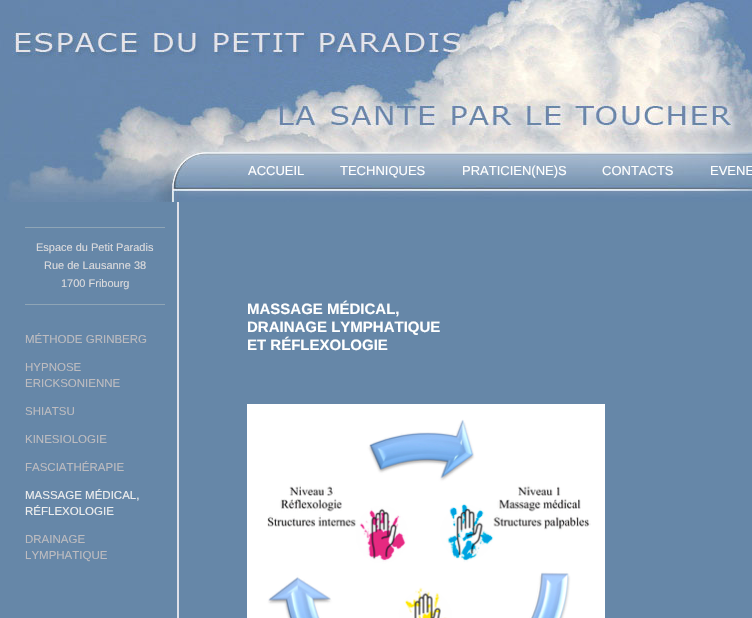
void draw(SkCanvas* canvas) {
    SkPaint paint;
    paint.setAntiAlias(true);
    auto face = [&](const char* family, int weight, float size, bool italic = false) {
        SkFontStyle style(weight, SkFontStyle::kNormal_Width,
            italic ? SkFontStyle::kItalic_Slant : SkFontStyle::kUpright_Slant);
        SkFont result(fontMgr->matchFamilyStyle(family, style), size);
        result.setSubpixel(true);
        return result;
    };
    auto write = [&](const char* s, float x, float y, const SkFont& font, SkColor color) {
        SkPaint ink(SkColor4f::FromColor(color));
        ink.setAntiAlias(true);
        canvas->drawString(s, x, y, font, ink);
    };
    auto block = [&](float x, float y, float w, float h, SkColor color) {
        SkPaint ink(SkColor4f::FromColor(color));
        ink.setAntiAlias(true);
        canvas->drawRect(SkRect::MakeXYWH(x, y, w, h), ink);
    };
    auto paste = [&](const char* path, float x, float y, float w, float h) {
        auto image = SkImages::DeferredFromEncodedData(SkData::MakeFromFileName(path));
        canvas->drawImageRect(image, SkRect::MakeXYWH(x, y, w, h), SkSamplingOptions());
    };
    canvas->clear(SkColorSetRGB(102, 135, 168));
    paste("pic1.png", 0, 0, 752, 202);
    auto kFont1 = face("Liberation Sans", 400, 13);
    write("ACCUEIL", 248, 175, kFont1, SK_ColorWHITE);
    write("TECHNIQUES", 340, 175, kFont1, SK_ColorWHITE);
    write("PRATICIEN(NE)S", 462, 175, kFont1, SK_ColorWHITE);
    write("CONTACTS", 602, 175, kFont1, SK_ColorWHITE);
    write("EVENE", 710, 175, kFont1, SK_ColorWHITE);
    block(25, 227, 140, 1, SkColorSetRGB(143, 165, 182));
    block(25, 304, 140, 1, SkColorSetRGB(143, 165, 182));
    auto kFont2 = face("Liberation Sans", 400, 11);
    write("Espace du Petit Paradis", 36, 251, kFont2, SkColorSetRGB(220, 219, 221));
    write("Rue de Lausanne 38", 44, 269, kFont2, SkColorSetRGB(220, 219, 221));
    write("1700 Fribourg", 61, 287, kFont2, SkColorSetRGB(220, 219, 221));
    auto kFont3 = face("Liberation Sans", 400, 11.5f);
    write("MÉTHODE GRINBERG", 25, 343, kFont3, SkColorSetRGB(189, 188, 192));
    write("HYPNOSE", 25, 371, kFont3, SkColorSetRGB(189, 188, 192));
    write("ERICKSONIENNE", 25, 387, kFont3, SkColorSetRGB(189, 188, 192));
    write("SHIATSU", 25, 415, kFont3, SkColorSetRGB(189, 188, 192));
    write("KINESIOLOGIE", 25, 443, kFont3, SkColorSetRGB(189, 188, 192));
    write("FASCIATHÉRAPIE", 25, 471, kFont3, SkColorSetRGB(189, 188, 192));
    write("MASSAGE MÉDICAL,", 25, 499, kFont3, SkColorSetRGB(238, 238, 238));
    write("RÉFLEXOLOGIE", 25, 515, kFont3, SkColorSetRGB(238, 238, 238));
    write("DRAINAGE", 25, 543, kFont3, SkColorSetRGB(189, 188, 192));
    write("LYMPHATIQUE", 25, 559, kFont3, SkColorSetRGB(189, 188, 192));
    block(177, 202, 2, 416, SkColorSetRGB(222, 224, 233));
    auto kFont4 = face("Liberation Sans", 700, 15);
    write("MASSAGE MÉDICAL,", 247, 314, kFont4, SK_ColorWHITE);
    write("DRAINAGE LYMPHATIQUE", 247, 332, kFont4, SK_ColorWHITE);
    write("ET RÉFLEXOLOGIE", 247, 350, kFont4, SK_ColorWHITE);
    paste("pic2.png", 247, 404, 358, 214);
}
